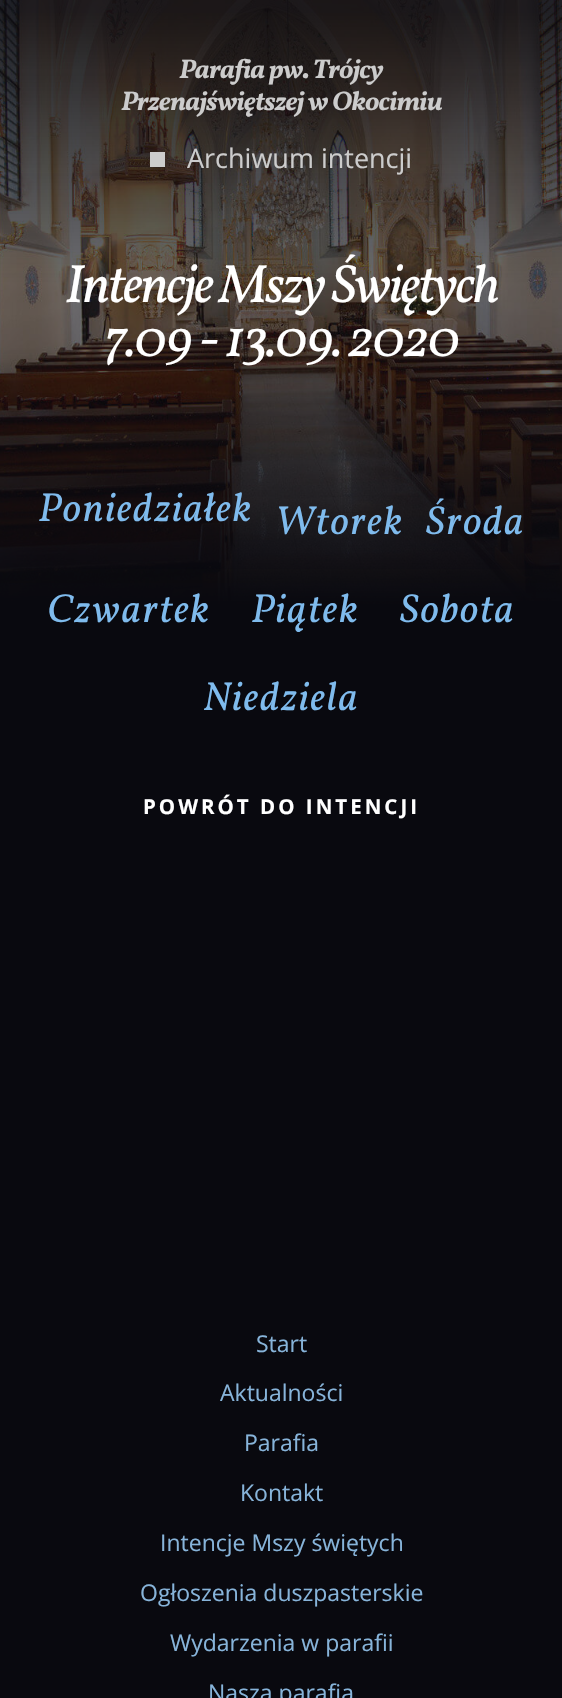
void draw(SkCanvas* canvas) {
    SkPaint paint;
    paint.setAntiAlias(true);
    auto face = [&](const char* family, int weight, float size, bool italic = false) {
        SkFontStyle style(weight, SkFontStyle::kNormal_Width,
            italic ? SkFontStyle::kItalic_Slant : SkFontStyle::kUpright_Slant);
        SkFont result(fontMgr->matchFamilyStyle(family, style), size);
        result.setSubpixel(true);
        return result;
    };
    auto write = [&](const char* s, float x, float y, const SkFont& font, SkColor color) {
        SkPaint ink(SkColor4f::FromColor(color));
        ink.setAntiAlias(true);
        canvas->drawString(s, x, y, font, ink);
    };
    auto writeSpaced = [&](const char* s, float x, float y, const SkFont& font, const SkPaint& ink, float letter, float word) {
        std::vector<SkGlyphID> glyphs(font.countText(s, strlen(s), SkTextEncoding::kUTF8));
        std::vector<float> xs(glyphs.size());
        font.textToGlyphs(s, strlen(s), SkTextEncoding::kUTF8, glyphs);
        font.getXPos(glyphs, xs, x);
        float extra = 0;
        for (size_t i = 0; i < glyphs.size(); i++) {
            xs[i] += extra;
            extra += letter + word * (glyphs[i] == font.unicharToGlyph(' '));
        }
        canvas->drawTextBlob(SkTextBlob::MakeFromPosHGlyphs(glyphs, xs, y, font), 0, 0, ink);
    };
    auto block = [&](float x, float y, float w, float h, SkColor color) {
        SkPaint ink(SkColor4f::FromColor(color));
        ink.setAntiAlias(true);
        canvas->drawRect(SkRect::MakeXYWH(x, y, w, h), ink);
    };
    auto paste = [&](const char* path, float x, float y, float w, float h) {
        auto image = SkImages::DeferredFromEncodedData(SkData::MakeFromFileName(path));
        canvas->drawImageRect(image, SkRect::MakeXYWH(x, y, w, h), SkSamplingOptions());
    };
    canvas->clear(SkColorSetRGB(9, 9, 15));
    paste("pic1.png", 0, 0, 562, 630);
    auto kFont1 = face("Vollkorn", 700, 27, true);
    paint.setColor(SkColorSetRGB(204, 204, 204));
    writeSpaced("Parafia pw. Trójcy", 179, 78, kFont1, paint, -0.8f, 0);
    writeSpaced("Przenajświętszej w Okocimiu", 121, 110, kFont1, paint, -0.8f, 0);
    block(150, 152, 15, 15, SkColorSetRGB(204, 204, 204));
    auto kFont2 = face("Open Sans", 400, 27);
    write("Archiwum intencji", 187, 168, kFont2, SkColorSetRGB(204, 204, 204));
    auto kFont3 = face("Vollkorn", 400, 54, true);
    paint.setColor(SK_ColorWHITE);
    writeSpaced("Intencje Mszy Świętych", 65, 302, kFont3, paint, -2.2f, 0);
    writeSpaced("7.09 - 13.09. 2020", 103, 356, kFont3, paint, -2.2f, 0);
    auto kFont4 = face("Vollkorn", 400, 40.5f, true);
    paint.setColor(SkColorSetRGB(127, 187, 237));
    writeSpaced("Poniedziałek", 38, 521, kFont4, paint, 1.6f, 0);
    writeSpaced("Wtorek", 275, 534, kFont4, paint, 1.6f, 0);
    writeSpaced("Środa", 426, 534, kFont4, paint, 1.6f, 0);
    writeSpaced("Czwartek", 47, 622, kFont4, paint, 1.6f, 0);
    writeSpaced("Piątek", 251, 622, kFont4, paint, 1.6f, 0);
    writeSpaced("Sobota", 400, 622, kFont4, paint, 1.6f, 0);
    writeSpaced("Niedziela", 203, 710, kFont4, paint, 1.6f, 0);
    auto kFont5 = face("Open Sans", 700, 20.5f);
    paint.setColor(SK_ColorWHITE);
    writeSpaced("POWRÓT DO INTENCJI", 143, 814, kFont5, paint, 3, 0);
    auto kFont6 = face("Open Sans", 400, 23);
    write("Start", 256, 1352, kFont6, SkColorSetRGB(135, 180, 218));
    write("Aktualności", 220, 1401, kFont6, SkColorSetRGB(135, 180, 218));
    write("Parafia", 244, 1451, kFont6, SkColorSetRGB(135, 180, 218));
    write("Kontakt", 240, 1501, kFont6, SkColorSetRGB(135, 180, 218));
    write("Intencje Mszy świętych", 160, 1551, kFont6, SkColorSetRGB(135, 180, 218));
    write("Ogłoszenia duszpasterskie", 140, 1601, kFont6, SkColorSetRGB(135, 180, 218));
    write("Wydarzenia w parafii", 170, 1651, kFont6, SkColorSetRGB(135, 180, 218));
    write("Nasza parafia", 208, 1701, kFont6, SkColorSetRGB(135, 180, 218));
}
